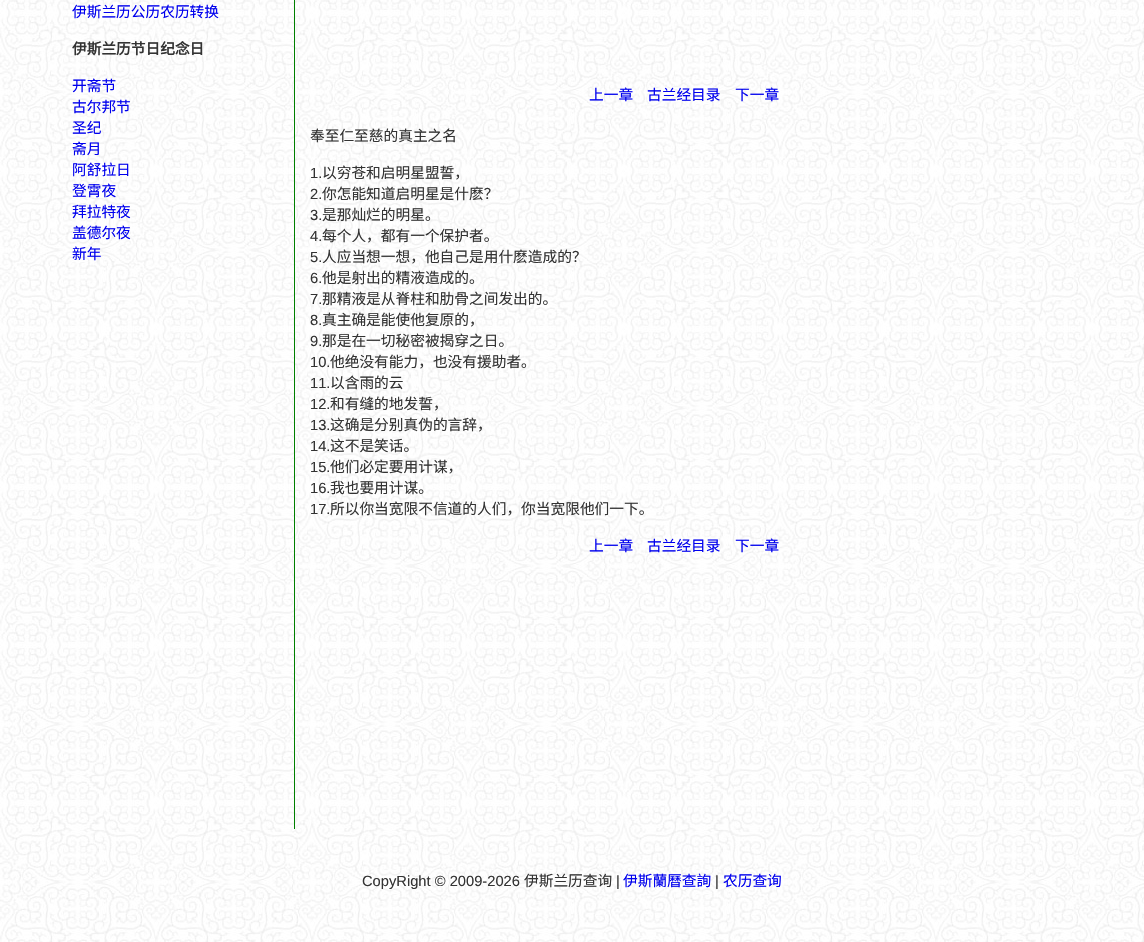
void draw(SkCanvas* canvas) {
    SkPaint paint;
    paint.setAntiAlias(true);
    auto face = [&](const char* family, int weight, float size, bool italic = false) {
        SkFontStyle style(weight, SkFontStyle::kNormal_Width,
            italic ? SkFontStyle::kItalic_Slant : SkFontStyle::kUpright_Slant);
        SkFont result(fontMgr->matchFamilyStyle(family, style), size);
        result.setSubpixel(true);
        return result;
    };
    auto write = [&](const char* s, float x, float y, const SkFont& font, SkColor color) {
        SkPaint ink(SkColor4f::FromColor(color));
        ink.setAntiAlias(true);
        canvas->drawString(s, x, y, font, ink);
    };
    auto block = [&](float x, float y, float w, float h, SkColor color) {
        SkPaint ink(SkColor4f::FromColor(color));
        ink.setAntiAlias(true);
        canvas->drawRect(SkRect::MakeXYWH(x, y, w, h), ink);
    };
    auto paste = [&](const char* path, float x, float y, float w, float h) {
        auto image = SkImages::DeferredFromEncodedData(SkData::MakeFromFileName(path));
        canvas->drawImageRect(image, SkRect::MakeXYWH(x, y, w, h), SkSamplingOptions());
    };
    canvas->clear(SK_ColorWHITE);
    paste("pic1.png", 0, 0, 1144, 942);
    auto kFont1 = face("Noto Sans CJK SC", 400, 14.7f);
    write("伊斯兰历公历农历转换", 72, 17, kFont1, SkColorSetRGB(0, 0, 238));
    auto kFont2 = face("Noto Sans CJK SC", 700, 14.7f);
    write("伊斯兰历节日纪念日", 72, 54, kFont2, SkColorSetRGB(51, 51, 51));
    write("开斋节", 72, 91, kFont1, SkColorSetRGB(0, 0, 238));
    write("古尔邦节", 72, 112, kFont1, SkColorSetRGB(0, 0, 238));
    write("圣纪", 72, 133, kFont1, SkColorSetRGB(0, 0, 238));
    write("斋月", 72, 154, kFont1, SkColorSetRGB(0, 0, 238));
    write("阿舒拉日", 72, 175, kFont1, SkColorSetRGB(0, 0, 238));
    write("登霄夜", 72, 196, kFont1, SkColorSetRGB(0, 0, 238));
    write("拜拉特夜", 72, 217, kFont1, SkColorSetRGB(0, 0, 238));
    write("盖德尔夜", 72, 238, kFont1, SkColorSetRGB(0, 0, 238));
    write("新年", 72, 259, kFont1, SkColorSetRGB(0, 0, 238));
    block(294, 0, 1, 829, SkColorSetRGB(0, 128, 0));
    write("上一章", 589, 100, kFont1, SkColorSetRGB(0, 0, 238));
    write("古兰经目录", 647, 100, kFont1, SkColorSetRGB(0, 0, 238));
    write("下一章", 735, 100, kFont1, SkColorSetRGB(0, 0, 238));
    write("奉至仁至慈的真主之名", 310, 141, kFont1, SkColorSetRGB(51, 51, 51));
    auto kFont3 = face("Liberation Sans", 400, 14.7f);
    write("1.", 310, 178, kFont3, SkColorSetRGB(51, 51, 51));
    write("以穷苍和启明星盟誓，", 322, 178, kFont1, SkColorSetRGB(51, 51, 51));
    write("2.", 310, 199, kFont3, SkColorSetRGB(51, 51, 51));
    write("你怎能知道启明星是什麽？", 322, 199, kFont1, SkColorSetRGB(51, 51, 51));
    write("3.", 310, 220, kFont3, SkColorSetRGB(51, 51, 51));
    write("是那灿烂的明星。", 322, 220, kFont1, SkColorSetRGB(51, 51, 51));
    write("4.", 310, 241, kFont3, SkColorSetRGB(51, 51, 51));
    write("每个人，都有一个保护者。", 322, 241, kFont1, SkColorSetRGB(51, 51, 51));
    write("5.", 310, 262, kFont3, SkColorSetRGB(51, 51, 51));
    write("人应当想一想，他自己是用什麽造成的？", 322, 262, kFont1, SkColorSetRGB(51, 51, 51));
    write("6.", 310, 283, kFont3, SkColorSetRGB(51, 51, 51));
    write("他是射出的精液造成的。", 322, 283, kFont1, SkColorSetRGB(51, 51, 51));
    write("7.", 310, 304, kFont3, SkColorSetRGB(51, 51, 51));
    write("那精液是从脊柱和肋骨之间发出的。", 322, 304, kFont1, SkColorSetRGB(51, 51, 51));
    write("8.", 310, 325, kFont3, SkColorSetRGB(51, 51, 51));
    write("真主确是能使他复原的，", 322, 325, kFont1, SkColorSetRGB(51, 51, 51));
    write("9.", 310, 346, kFont3, SkColorSetRGB(51, 51, 51));
    write("那是在一切秘密被揭穿之日。", 322, 346, kFont1, SkColorSetRGB(51, 51, 51));
    write("10.", 310, 367, kFont3, SkColorSetRGB(51, 51, 51));
    write("他绝没有能力，也没有援助者。", 330, 367, kFont1, SkColorSetRGB(51, 51, 51));
    write("11.", 310, 388, kFont3, SkColorSetRGB(51, 51, 51));
    write("以含雨的云", 330, 388, kFont1, SkColorSetRGB(51, 51, 51));
    write("12.", 310, 409, kFont3, SkColorSetRGB(51, 51, 51));
    write("和有缝的地发誓，", 330, 409, kFont1, SkColorSetRGB(51, 51, 51));
    write("13.", 310, 430, kFont3, SkColorSetRGB(51, 51, 51));
    write("这确是分别真伪的言辞，", 330, 430, kFont1, SkColorSetRGB(51, 51, 51));
    write("14.", 310, 451, kFont3, SkColorSetRGB(51, 51, 51));
    write("这不是笑话。", 330, 451, kFont1, SkColorSetRGB(51, 51, 51));
    write("15.", 310, 472, kFont3, SkColorSetRGB(51, 51, 51));
    write("他们必定要用计谋，", 330, 472, kFont1, SkColorSetRGB(51, 51, 51));
    write("16.", 310, 493, kFont3, SkColorSetRGB(51, 51, 51));
    write("我也要用计谋。", 330, 493, kFont1, SkColorSetRGB(51, 51, 51));
    write("17.", 310, 514, kFont3, SkColorSetRGB(51, 51, 51));
    write("所以你当宽限不信道的人们，你当宽限他们一下。", 330, 514, kFont1, SkColorSetRGB(51, 51, 51));
    write("上一章", 589, 551, kFont1, SkColorSetRGB(0, 0, 238));
    write("古兰经目录", 647, 551, kFont1, SkColorSetRGB(0, 0, 238));
    write("下一章", 735, 551, kFont1, SkColorSetRGB(0, 0, 238));
    write("CopyRight © 2009-2026", 362, 886, kFont3, SkColorSetRGB(51, 51, 51));
    write("伊斯兰历查询", 524, 886, kFont1, SkColorSetRGB(51, 51, 51));
    write("|", 616, 886, kFont3, SkColorSetRGB(51, 51, 51));
    write("伊斯蘭曆查詢", 623, 886, kFont1, SkColorSetRGB(0, 0, 238));
    write("|", 715, 886, kFont3, SkColorSetRGB(51, 51, 51));
    write("农历查询", 723, 886, kFont1, SkColorSetRGB(0, 0, 238));
}
